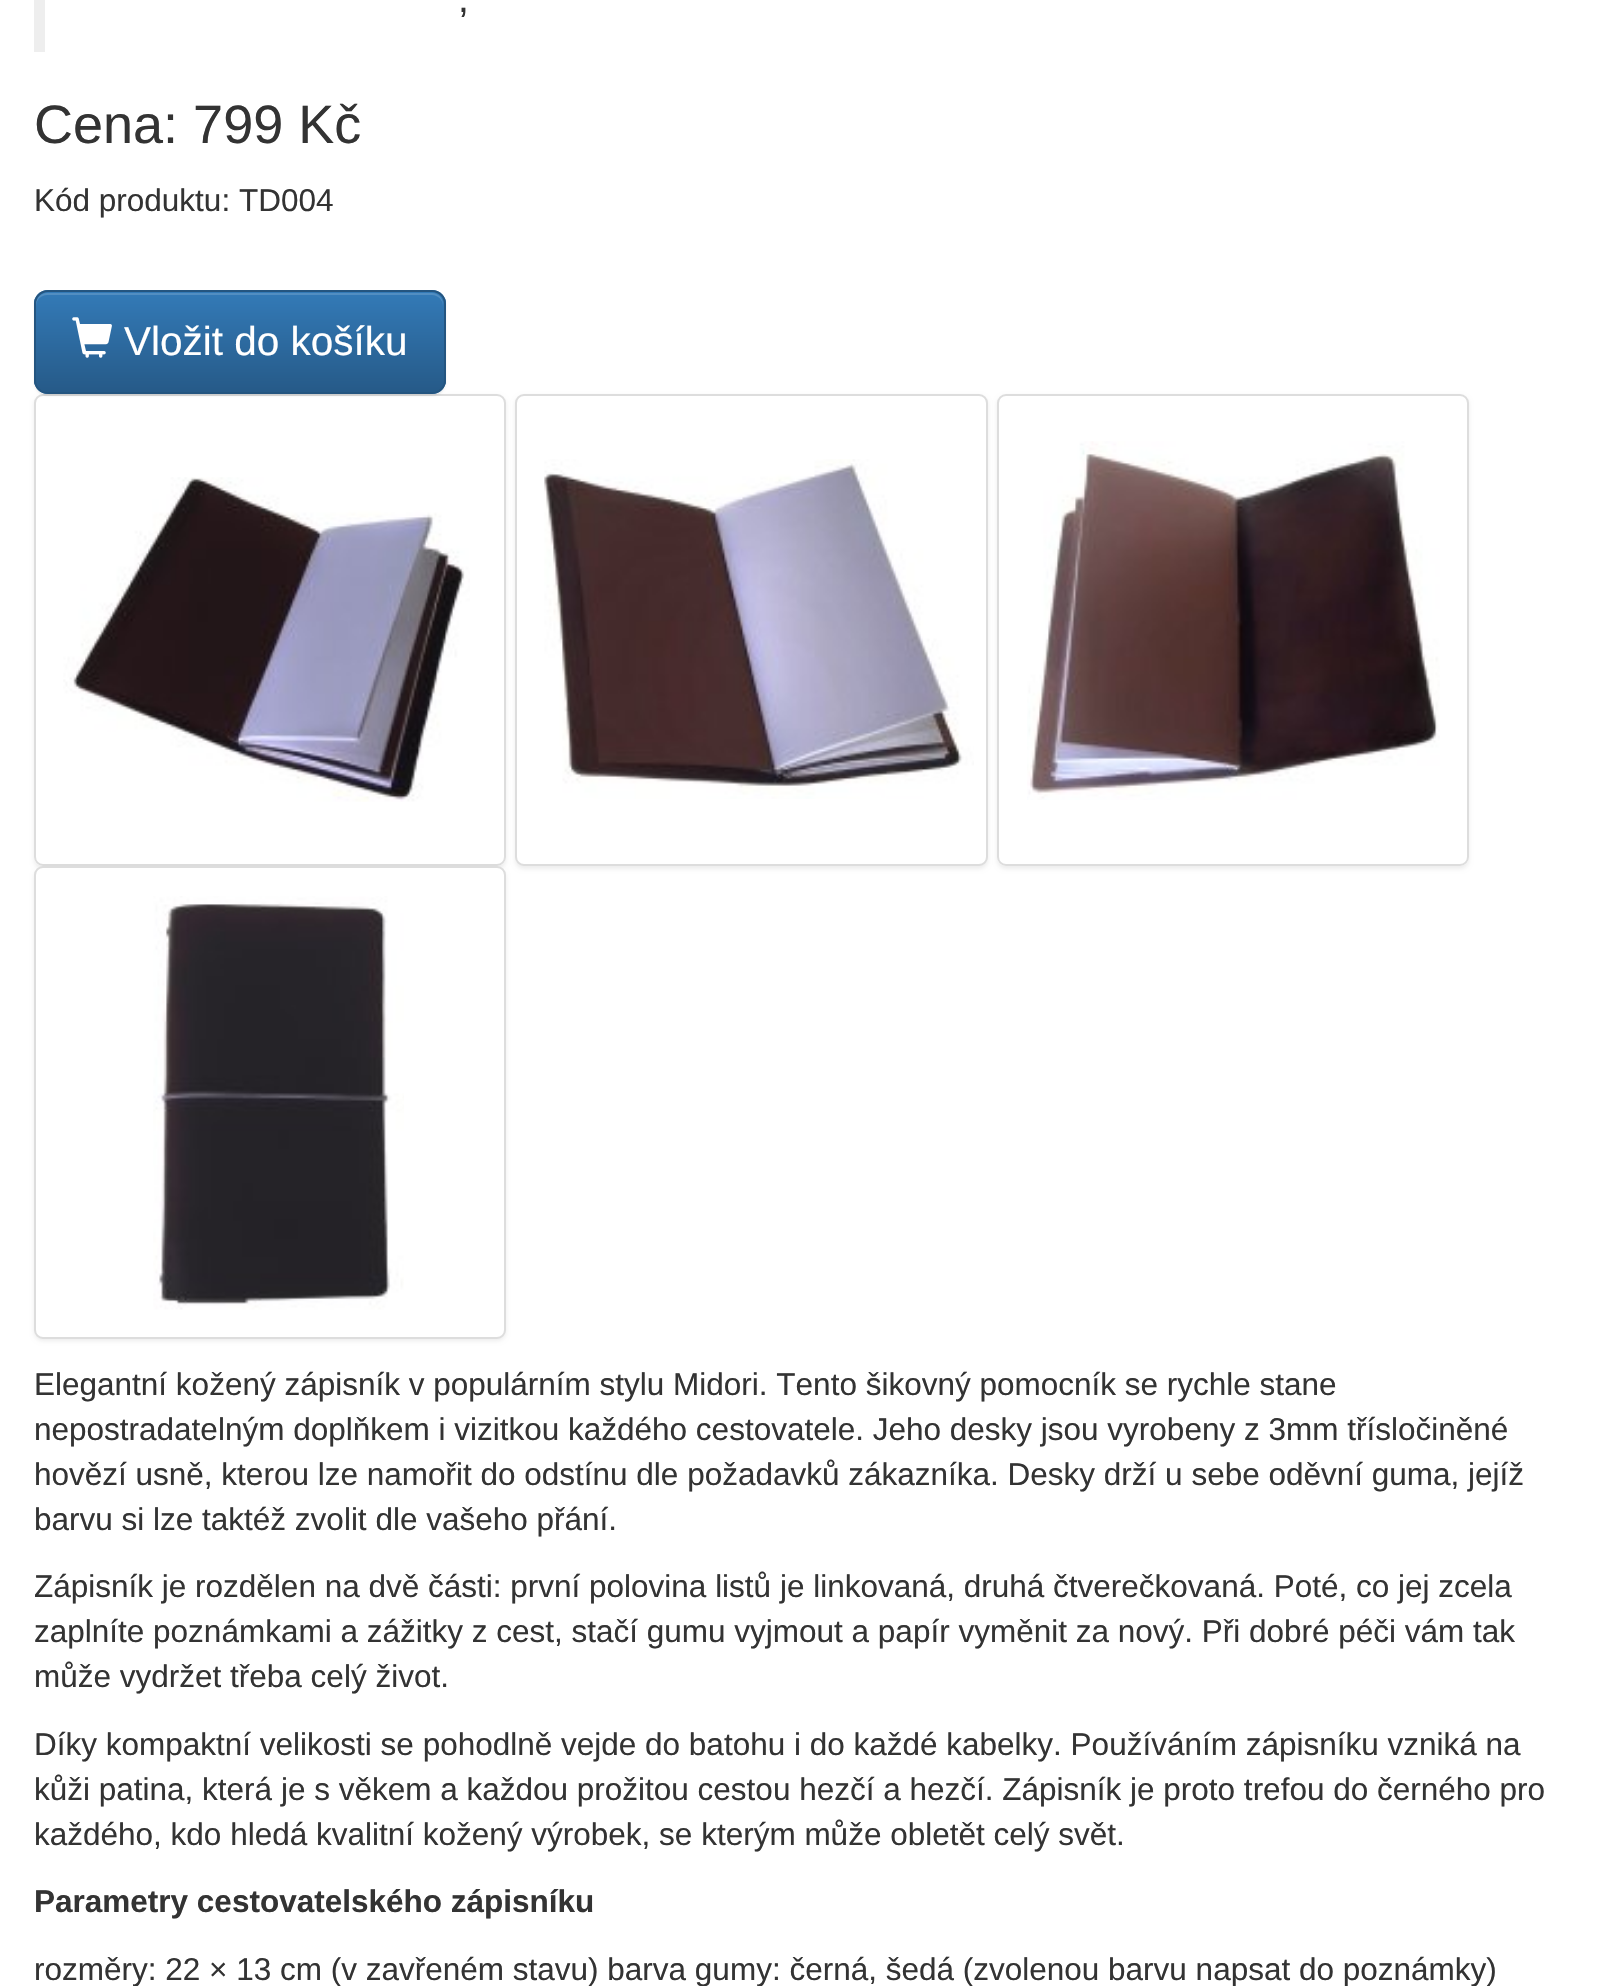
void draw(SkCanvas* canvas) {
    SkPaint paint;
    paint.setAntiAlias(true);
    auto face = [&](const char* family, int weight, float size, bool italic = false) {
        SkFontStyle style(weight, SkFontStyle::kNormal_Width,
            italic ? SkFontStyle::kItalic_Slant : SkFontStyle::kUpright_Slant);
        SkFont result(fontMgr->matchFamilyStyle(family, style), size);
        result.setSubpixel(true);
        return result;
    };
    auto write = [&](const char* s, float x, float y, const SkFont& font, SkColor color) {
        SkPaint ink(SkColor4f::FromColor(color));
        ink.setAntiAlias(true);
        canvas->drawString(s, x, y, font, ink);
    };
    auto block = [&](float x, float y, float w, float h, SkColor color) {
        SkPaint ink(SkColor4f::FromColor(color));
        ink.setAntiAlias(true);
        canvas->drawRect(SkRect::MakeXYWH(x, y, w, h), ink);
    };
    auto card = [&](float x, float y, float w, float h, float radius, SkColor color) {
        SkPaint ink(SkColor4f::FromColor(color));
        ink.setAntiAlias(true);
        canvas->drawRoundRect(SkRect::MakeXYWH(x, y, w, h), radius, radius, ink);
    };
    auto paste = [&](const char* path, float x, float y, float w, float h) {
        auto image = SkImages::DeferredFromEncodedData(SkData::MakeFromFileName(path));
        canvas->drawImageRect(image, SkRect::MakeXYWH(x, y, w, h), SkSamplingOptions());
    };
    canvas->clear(SK_ColorWHITE);
    block(34, 0, 11, 52, SkColorSetRGB(238, 238, 238));
    auto kFont1 = face("Liberation Sans", 400, 39);
    write(",", 458, 12, kFont1, SkColorSetRGB(51, 51, 51));
    auto kFont2 = face("Liberation Sans", 400, 54);
    write("Cena: 799 Kč", 34, 143, kFont2, SkColorSetRGB(51, 51, 51));
    auto kFont3 = face("Liberation Sans", 400, 31.5f);
    write("Kód produktu: TD004", 34, 211, kFont3, SkColorSetRGB(51, 51, 51));
    canvas->save();
    canvas->clipPath(SkPathBuilder(SkPathFillType::kEvenOdd).moveTo(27, 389).lineTo(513, 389).lineTo(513, 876).lineTo(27, 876).close().moveTo(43, 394).lineTo(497, 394).cubicTo(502, 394, 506, 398, 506, 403).lineTo(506, 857).cubicTo(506, 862, 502, 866, 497, 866).lineTo(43, 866).cubicTo(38, 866, 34, 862, 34, 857).lineTo(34, 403).cubicTo(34, 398, 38, 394, 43, 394).close().detach(), true);
    paint.setColor(SkColorSetARGB(18, 0, 0, 0));
    paint.setMaskFilter(SkMaskFilter::MakeBlur(kNormal_SkBlurStyle, 2));
    canvas->drawRoundRect(SkRect::MakeXYWH(34, 396, 472, 473), 9, 9, paint);
    paint.setMaskFilter(nullptr);
    canvas->restore();
    paint.setStyle(SkPaint::kStroke_Style);
    paint.setStrokeWidth(2);
    paint.setColor(SkColorSetRGB(221, 221, 221));
    canvas->drawRoundRect(SkRect::MakeXYWH(35, 395, 470, 470), 8, 8, paint);
    paint.setStyle(SkPaint::kFill_Style);
    paint.setColor(SkColorSetARGB(18, 0, 0, 0));
    paint.setMaskFilter(SkMaskFilter::MakeBlur(kNormal_SkBlurStyle, 1));
    canvas->drawRoundRect(SkRect::MakeXYWH(34, 293, 412, 103), 14, 14, paint);
    paint.setMaskFilter(nullptr);
    card(34, 290, 412, 104, 14, SkColorSetRGB(51, 122, 183));
    canvas->save();
    canvas->clipPath(SkPathBuilder().moveTo(48, 290).lineTo(432, 290).cubicTo(439.5f, 290, 446, 296.5f, 446, 304).lineTo(446, 380).cubicTo(446, 387.5f, 439.5f, 394, 432, 394).lineTo(48, 394).cubicTo(40.5f, 394, 34, 387.5f, 34, 380).lineTo(34, 304).cubicTo(34, 296.5f, 40.5f, 290, 48, 290).close().detach(), true);
    {
        const SkColor colors[] = {SkColorSetRGB(51, 122, 183), SkColorSetRGB(38, 90, 136)};
        const float stops[] = {0, 1};
        const SkPoint ends[] = {{240, 293}, {240, 392}};
        paint.setShader(SkGradientShader::MakeLinear(ends, colors, stops, 2, SkTileMode::kClamp));
        paint.setAlpha(255);
    }
    canvas->drawRect(SkRect::MakeXYWH(34, 293, 412, 99), paint);
    canvas->restore();
    paint.setShader(nullptr);
    paint.setColor(SkColorSetARGB(38, 255, 255, 255));
    canvas->drawPath(SkPathBuilder().moveTo(47, 295).lineTo(432, 295).cubicTo(438, 295, 443, 300, 443, 306).lineTo(443, 304).cubicTo(443, 298, 438, 293, 432, 293).lineTo(47, 293).cubicTo(41, 293, 36, 298, 36, 304).lineTo(36, 306).cubicTo(36, 300, 41, 295, 47, 295).close().detach(), paint);
    paint.setStyle(SkPaint::kStroke_Style);
    paint.setColor(SkColorSetRGB(36, 85, 128));
    canvas->drawRoundRect(SkRect::MakeXYWH(35, 291, 410, 102), 13, 13, paint);
    paste("pic1.png", 72, 317, 40, 41);
    auto kFont4 = face("Liberation Sans", 400, 40.5f);
    write("Vložit do košíku", 124, 355, kFont4, SK_ColorWHITE);
    paste("pic2.png", 63, 477, 407, 325);
    paint.setStyle(SkPaint::kFill_Style);
    paint.setColor(SkColorSetARGB(18, 0, 0, 0));
    paint.setMaskFilter(SkMaskFilter::MakeBlur(kNormal_SkBlurStyle, 2));
    canvas->drawRoundRect(SkRect::MakeXYWH(515, 396, 473, 473), 9, 9, paint);
    paint.setMaskFilter(nullptr);
    paint.setColor(SK_ColorWHITE);
    canvas->drawRoundRect(SkRect::MakeXYWH(516, 395, 471, 470), 8, 8, paint);
    paint.setStyle(SkPaint::kStroke_Style);
    paint.setColor(SkColorSetRGB(221, 221, 221));
    canvas->drawRoundRect(SkRect::MakeXYWH(516, 395, 471, 470), 8, 8, paint);
    paste("pic3.png", 544, 459, 430, 340);
    canvas->save();
    canvas->clipPath(SkPathBuilder(SkPathFillType::kEvenOdd).moveTo(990, 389).lineTo(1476, 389).lineTo(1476, 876).lineTo(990, 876).close().moveTo(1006, 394).lineTo(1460, 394).cubicTo(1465, 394, 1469, 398, 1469, 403).lineTo(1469, 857).cubicTo(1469, 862, 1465, 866, 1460, 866).lineTo(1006, 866).cubicTo(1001, 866, 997, 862, 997, 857).lineTo(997, 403).cubicTo(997, 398, 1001, 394, 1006, 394).close().detach(), true);
    paint.setStyle(SkPaint::kFill_Style);
    paint.setColor(SkColorSetARGB(18, 0, 0, 0));
    paint.setMaskFilter(SkMaskFilter::MakeBlur(kNormal_SkBlurStyle, 2));
    canvas->drawRoundRect(SkRect::MakeXYWH(997, 396, 472, 473), 9, 9, paint);
    paint.setMaskFilter(nullptr);
    canvas->restore();
    paint.setStyle(SkPaint::kStroke_Style);
    paint.setColor(SkColorSetRGB(221, 221, 221));
    canvas->drawRoundRect(SkRect::MakeXYWH(998, 395, 470, 470), 8, 8, paint);
    paste("pic4.png", 1027, 441, 413, 359);
    paint.setStyle(SkPaint::kFill_Style);
    paint.setColor(SkColorSetARGB(18, 0, 0, 0));
    paint.setMaskFilter(SkMaskFilter::MakeBlur(kNormal_SkBlurStyle, 2));
    canvas->drawRoundRect(SkRect::MakeXYWH(34, 869, 472, 472), 9, 9, paint);
    paint.setMaskFilter(nullptr);
    paint.setColor(SK_ColorWHITE);
    canvas->drawRoundRect(SkRect::MakeXYWH(35, 867, 470, 471), 8, 8, paint);
    paint.setStyle(SkPaint::kStroke_Style);
    paint.setColor(SkColorSetRGB(221, 221, 221));
    canvas->drawRoundRect(SkRect::MakeXYWH(35, 867, 470, 471), 8, 8, paint);
    paste("pic5.png", 153, 896, 251, 414);
    write("Elegantní kožený zápisník v populárním stylu Midori. Tento šikovný pomocník se rychle stane", 34, 1395, kFont3, SkColorSetRGB(51, 51, 51));
    write("nepostradatelným doplňkem i vizitkou každého cestovatele. Jeho desky jsou vyrobeny z 3mm třísločiněné", 34, 1440, kFont3, SkColorSetRGB(51, 51, 51));
    write("hovězí usně, kterou lze namořit do odstínu dle požadavků zákazníka. Desky drží u sebe oděvní guma, jejíž", 34, 1485, kFont3, SkColorSetRGB(51, 51, 51));
    write("barvu si lze taktéž zvolit dle vašeho přání.", 34, 1530, kFont3, SkColorSetRGB(51, 51, 51));
    write("Zápisník je rozdělen na dvě části: první polovina listů je linkovaná, druhá čtverečkovaná. Poté, co jej zcela", 34, 1597, kFont3, SkColorSetRGB(51, 51, 51));
    write("zaplníte poznámkami a zážitky z cest, stačí gumu vyjmout a papír vyměnit za nový. Při dobré péči vám tak", 34, 1642, kFont3, SkColorSetRGB(51, 51, 51));
    write("může vydržet třeba celý život.", 34, 1687, kFont3, SkColorSetRGB(51, 51, 51));
    write("Díky kompaktní velikosti se pohodlně vejde do batohu i do každé kabelky. Používáním zápisníku vzniká na", 34, 1755, kFont3, SkColorSetRGB(51, 51, 51));
    write("kůži patina, která je s věkem a každou prožitou cestou hezčí a hezčí. Zápisník je proto trefou do černého pro", 34, 1800, kFont3, SkColorSetRGB(51, 51, 51));
    write("každého, kdo hledá kvalitní kožený výrobek, se kterým může obletět celý svět.", 34, 1845, kFont3, SkColorSetRGB(51, 51, 51));
    auto kFont5 = face("Liberation Sans", 700, 31.5f);
    write("Parametry cestovatelského zápisníku", 34, 1912, kFont5, SkColorSetRGB(51, 51, 51));
    write("rozměry: 22 × 13 cm (v zavřeném stavu) barva gumy: černá, šedá (zvolenou barvu napsat do poznámky)", 34, 1980, kFont3, SkColorSetRGB(51, 51, 51));
}
